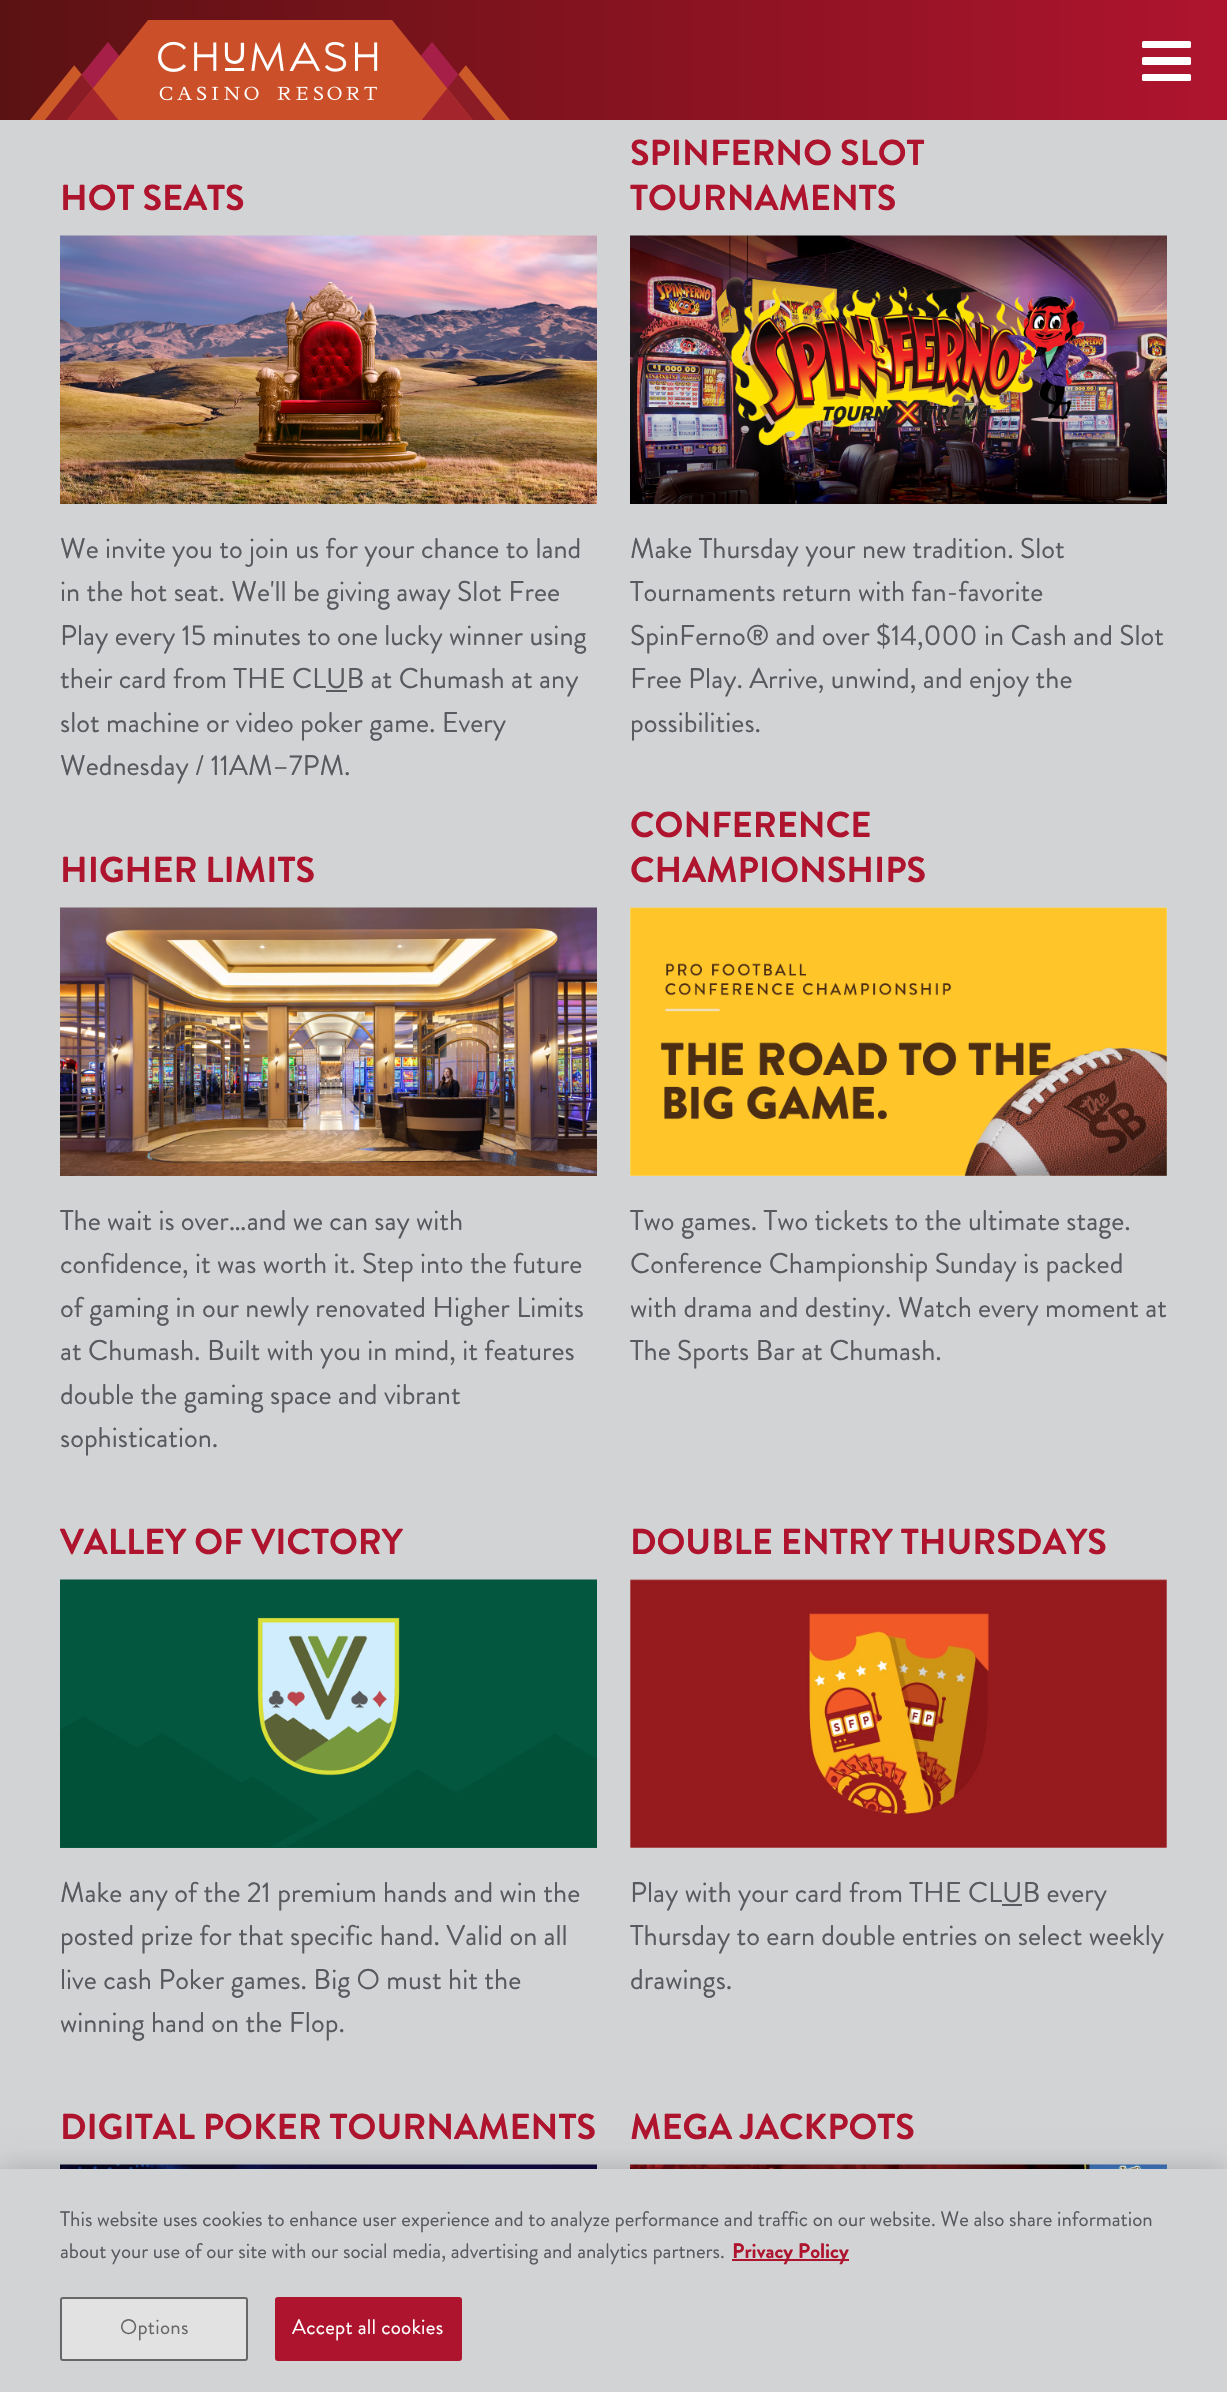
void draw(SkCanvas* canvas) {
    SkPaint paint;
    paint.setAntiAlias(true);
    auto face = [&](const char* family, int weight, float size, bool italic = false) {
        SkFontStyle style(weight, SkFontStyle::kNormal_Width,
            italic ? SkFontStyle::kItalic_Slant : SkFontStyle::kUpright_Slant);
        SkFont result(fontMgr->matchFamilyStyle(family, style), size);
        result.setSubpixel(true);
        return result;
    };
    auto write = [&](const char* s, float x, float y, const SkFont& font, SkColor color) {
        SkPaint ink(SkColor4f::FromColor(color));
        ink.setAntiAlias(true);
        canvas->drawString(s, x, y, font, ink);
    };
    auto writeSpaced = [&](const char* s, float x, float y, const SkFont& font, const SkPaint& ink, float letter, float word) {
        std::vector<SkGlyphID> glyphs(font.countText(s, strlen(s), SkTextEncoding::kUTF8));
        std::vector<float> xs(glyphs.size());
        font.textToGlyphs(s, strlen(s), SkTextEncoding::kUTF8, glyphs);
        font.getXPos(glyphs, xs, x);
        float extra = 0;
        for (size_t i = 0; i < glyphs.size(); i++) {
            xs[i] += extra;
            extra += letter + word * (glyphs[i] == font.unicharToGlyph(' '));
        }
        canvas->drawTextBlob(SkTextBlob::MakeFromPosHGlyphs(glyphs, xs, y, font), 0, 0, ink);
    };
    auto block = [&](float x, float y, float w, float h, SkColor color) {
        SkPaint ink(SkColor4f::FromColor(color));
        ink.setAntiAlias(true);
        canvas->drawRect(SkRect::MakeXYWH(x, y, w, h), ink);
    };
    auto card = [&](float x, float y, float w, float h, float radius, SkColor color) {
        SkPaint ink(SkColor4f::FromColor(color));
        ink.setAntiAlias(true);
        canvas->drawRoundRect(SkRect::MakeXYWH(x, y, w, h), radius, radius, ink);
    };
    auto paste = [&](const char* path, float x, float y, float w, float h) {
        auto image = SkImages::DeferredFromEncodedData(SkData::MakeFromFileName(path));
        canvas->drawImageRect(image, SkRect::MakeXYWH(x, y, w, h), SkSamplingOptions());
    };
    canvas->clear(SkColorSetRGB(209, 211, 212));
    {
        const SkColor colors[] = {SkColorSetRGB(91, 18, 18), SkColorSetRGB(175, 20, 46)};
        const float stops[] = {0, 1};
        const SkPoint ends[] = {{0, 60}, {1227, 60}};
        paint.setShader(SkGradientShader::MakeLinear(ends, colors, stops, 2, SkTileMode::kClamp));
        paint.setAlpha(255);
    }
    canvas->drawRect(SkRect::MakeXYWH(0, 0, 1227, 120), paint);
    paste("pic1.png", 30, 20, 480, 100);
    card(1142, 41, 49, 7, 1.5f, SK_ColorWHITE);
    card(1142, 57, 49, 8, 1.5f, SK_ColorWHITE);
    card(1142, 74, 49, 7, 1.5f, SK_ColorWHITE);
    auto kFont1 = face("Brandon Grotesque", 700, 36);
    write("HOT SEATS", 60, 210, kFont1, SkColorSetRGB(175, 20, 46));
    paste("pic2.png", 60, 235, 537, 269);
    auto kFont2 = face("Brandon Grotesque", 400, 28.5f);
    write("We invite you to join us for your chance to land", 60, 558, kFont2, SkColorSetRGB(89, 89, 95));
    write("in the hot seat. We'll be giving away Slot Free", 60, 601, kFont2, SkColorSetRGB(89, 89, 95));
    write("Play every 15 minutes to one lucky winner using", 60, 645, kFont2, SkColorSetRGB(89, 89, 95));
    write("their card from THE CLUB at Chumash at any", 60, 688, kFont2, SkColorSetRGB(89, 89, 95));
    block(326, 690, 21, 2, SkColorSetRGB(89, 89, 95));
    write("slot machine or video poker game. Every", 60, 732, kFont2, SkColorSetRGB(89, 89, 95));
    write("Wednesday / 11AM–7PM.", 60, 775, kFont2, SkColorSetRGB(89, 89, 95));
    write("SPINFERNO SLOT", 630, 165, kFont1, SkColorSetRGB(175, 20, 46));
    write("TOURNAMENTS", 630, 210, kFont1, SkColorSetRGB(175, 20, 46));
    paste("pic3.png", 630, 235, 537, 269);
    write("Make Thursday your new tradition. Slot", 630, 558, kFont2, SkColorSetRGB(89, 89, 95));
    write("Tournaments return with fan-favorite", 630, 601, kFont2, SkColorSetRGB(89, 89, 95));
    write("SpinFerno® and over $14,000 in Cash and Slot", 630, 645, kFont2, SkColorSetRGB(89, 89, 95));
    write("Free Play. Arrive, unwind, and enjoy the", 630, 688, kFont2, SkColorSetRGB(89, 89, 95));
    write("possibilities.", 630, 732, kFont2, SkColorSetRGB(89, 89, 95));
    write("HIGHER LIMITS", 60, 882, kFont1, SkColorSetRGB(175, 20, 46));
    paste("pic4.png", 60, 907, 537, 269);
    write("The wait is over…and we can say with", 60, 1230, kFont2, SkColorSetRGB(89, 89, 95));
    write("confidence, it was worth it. Step into the future", 60, 1273, kFont2, SkColorSetRGB(89, 89, 95));
    write("of gaming in our newly renovated Higher Limits", 60, 1317, kFont2, SkColorSetRGB(89, 89, 95));
    write("at Chumash. Built with you in mind, it features", 60, 1360, kFont2, SkColorSetRGB(89, 89, 95));
    write("double the gaming space and vibrant", 60, 1404, kFont2, SkColorSetRGB(89, 89, 95));
    write("sophistication.", 60, 1447, kFont2, SkColorSetRGB(89, 89, 95));
    write("CONFERENCE", 630, 837, kFont1, SkColorSetRGB(175, 20, 46));
    write("CHAMPIONSHIPS", 630, 882, kFont1, SkColorSetRGB(175, 20, 46));
    paste("pic5.png", 630, 907, 537, 269);
    write("Two games. Two tickets to the ultimate stage.", 630, 1230, kFont2, SkColorSetRGB(89, 89, 95));
    write("Conference Championship Sunday is packed", 630, 1273, kFont2, SkColorSetRGB(89, 89, 95));
    write("with drama and destiny. Watch every moment at", 630, 1317, kFont2, SkColorSetRGB(89, 89, 95));
    write("The Sports Bar at Chumash.", 630, 1360, kFont2, SkColorSetRGB(89, 89, 95));
    write("VALLEY OF VICTORY", 60, 1554, kFont1, SkColorSetRGB(175, 20, 46));
    paste("pic6.png", 60, 1579, 537, 269);
    write("Make any of the 21 premium hands and win the", 60, 1902, kFont2, SkColorSetRGB(89, 89, 95));
    write("posted prize for that specific hand. Valid on all", 60, 1945, kFont2, SkColorSetRGB(89, 89, 95));
    write("live cash Poker games. Big O must hit the", 60, 1989, kFont2, SkColorSetRGB(89, 89, 95));
    write("winning hand on the Flop.", 60, 2032, kFont2, SkColorSetRGB(89, 89, 95));
    write("DOUBLE ENTRY THURSDAYS", 630, 1554, kFont1, SkColorSetRGB(175, 20, 46));
    paste("pic7.png", 630, 1579, 537, 269);
    write("Play with your card from THE CLUB every", 630, 1902, kFont2, SkColorSetRGB(89, 89, 95));
    block(1002, 1904, 20, 2, SkColorSetRGB(89, 89, 95));
    write("Thursday to earn double entries on select weekly", 630, 1945, kFont2, SkColorSetRGB(89, 89, 95));
    write("drawings.", 630, 1989, kFont2, SkColorSetRGB(89, 89, 95));
    write("DIGITAL POKER TOURNAMENTS", 60, 2139, kFont1, SkColorSetRGB(175, 20, 46));
    paste("pic8.png", 60, 2164, 537, 5);
    write("MEGA JACKPOTS", 630, 2139, kFont1, SkColorSetRGB(175, 20, 46));
    paste("pic9.png", 630, 2164, 537, 5);
    paint.setShader(nullptr);
    paint.setColor(SkColorSetARGB(51, 0, 0, 0));
    paint.setMaskFilter(SkMaskFilter::MakeBlur(kNormal_SkBlurStyle, 13.5f));
    canvas->drawRect(SkRect::MakeXYWH(0, 2169, 1227, 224), paint);
    paint.setMaskFilter(nullptr);
    block(0, 2169, 1227, 223, SkColorSetRGB(209, 211, 212));
    auto kFont3 = face("Brandon Grotesque", 400, 21);
    write("This website uses cookies to enhance user experience and to analyze performance and traffic on our website. We also share information", 60, 2226, kFont3, SkColorSetRGB(89, 89, 95));
    write("about your use of our site with our social media, advertising and analytics partners.", 60, 2258, kFont3, SkColorSetRGB(89, 89, 95));
    block(732, 2259, 117, 2, SkColorSetRGB(175, 20, 46));
    auto kFont4 = face("Brandon Grotesque", 700, 21);
    write("Privacy Policy", 732, 2258, kFont4, SkColorSetRGB(175, 20, 46));
    paint.setColor(SkColorSetRGB(226, 226, 226));
    canvas->drawRoundRect(SkRect::MakeXYWH(61, 2298, 186, 62), 2, 2, paint);
    paint.setStyle(SkPaint::kStroke_Style);
    paint.setStrokeWidth(2);
    paint.setColor(SkColorSetRGB(103, 103, 103));
    canvas->drawRoundRect(SkRect::MakeXYWH(61, 2298, 186, 62), 2, 2, paint);
    paint.setStyle(SkPaint::kFill_Style);
    writeSpaced("Options", 120, 2334, kFont3, paint, 0.25f, 0);
    paint.setColor(SkColorSetRGB(175, 20, 46));
    canvas->drawRoundRect(SkRect::MakeXYWH(276, 2298, 185, 62), 2, 2, paint);
    paint.setStyle(SkPaint::kStroke_Style);
    canvas->drawRoundRect(SkRect::MakeXYWH(276, 2298, 185, 62), 2, 2, paint);
    paint.setStyle(SkPaint::kFill_Style);
    paint.setColor(SK_ColorWHITE);
    writeSpaced("Accept all cookies", 292, 2334, kFont3, paint, 0.25f, 0);
}
